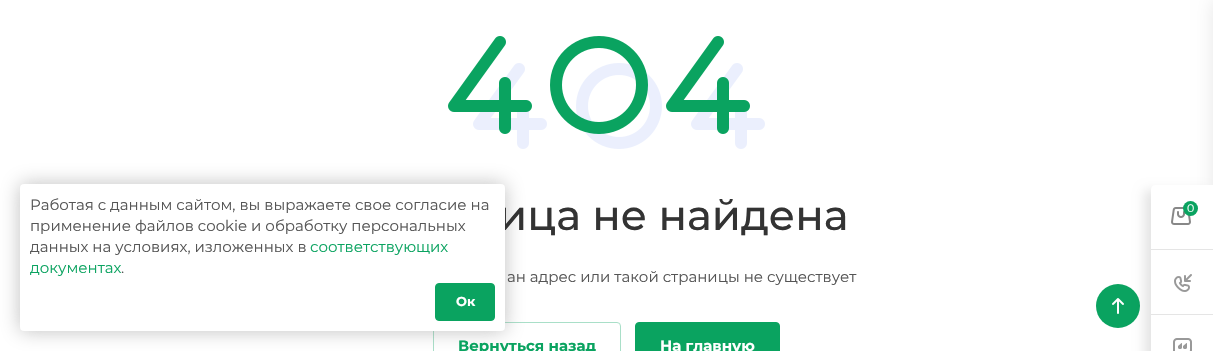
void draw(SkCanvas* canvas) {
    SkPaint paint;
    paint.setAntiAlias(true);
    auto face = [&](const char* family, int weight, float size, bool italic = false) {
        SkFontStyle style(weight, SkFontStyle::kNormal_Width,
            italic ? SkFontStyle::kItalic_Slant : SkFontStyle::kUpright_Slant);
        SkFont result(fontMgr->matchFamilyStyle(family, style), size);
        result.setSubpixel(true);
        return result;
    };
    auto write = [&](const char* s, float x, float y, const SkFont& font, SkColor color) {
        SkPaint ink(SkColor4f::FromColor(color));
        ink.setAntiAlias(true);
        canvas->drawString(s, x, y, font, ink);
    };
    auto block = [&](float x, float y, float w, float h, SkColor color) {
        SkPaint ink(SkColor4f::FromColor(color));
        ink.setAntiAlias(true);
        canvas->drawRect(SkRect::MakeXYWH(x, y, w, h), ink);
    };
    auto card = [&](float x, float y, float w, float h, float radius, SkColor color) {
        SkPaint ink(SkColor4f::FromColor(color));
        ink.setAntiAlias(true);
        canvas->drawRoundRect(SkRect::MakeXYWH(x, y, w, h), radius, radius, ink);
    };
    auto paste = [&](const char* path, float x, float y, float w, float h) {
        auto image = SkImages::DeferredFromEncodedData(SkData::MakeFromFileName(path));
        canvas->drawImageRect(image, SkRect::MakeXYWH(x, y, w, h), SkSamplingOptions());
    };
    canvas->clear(SK_ColorWHITE);
    paint.setStyle(SkPaint::kStroke_Style);
    paint.setStrokeWidth(1);
    paint.setColor(SkColorSetRGB(169, 223, 200));
    canvas->drawRoundRect(SkRect::MakeXYWH(433.5f, 322.5f, 187, 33), 3.5f, 3.5f, paint);
    paint.setStyle(SkPaint::kFill_Style);
    paint.setColor(SkColorSetARGB(128, 125, 125, 125));
    paint.setMaskFilter(SkMaskFilter::MakeBlur(kNormal_SkBlurStyle, 10));
    canvas->drawRoundRect(SkRect::MakeXYWH(20, 184, 485, 147), 4, 4, paint);
    paint.setMaskFilter(nullptr);
    auto kFont1 = face("Montserrat", 500, 42);
    write("ица не найдена", 498, 230, kFont1, SkColorSetRGB(51, 51, 51));
    card(20, 184, 485, 147, 4, SK_ColorWHITE);
    auto kFont2 = face("Montserrat", 400, 15);
    write("Работая с данным сайтом, вы выражаете свое согласие на", 30, 210, kFont2, SkColorSetRGB(85, 85, 85));
    write("применение файлов cookie и обработку персональных", 30, 231, kFont2, SkColorSetRGB(85, 85, 85));
    write("данных на условиях, изложенных в", 30, 252, kFont2, SkColorSetRGB(85, 85, 85));
    write("соответствующих", 310, 252, kFont2, SkColorSetRGB(10, 163, 96));
    write("документах", 30, 273, kFont2, SkColorSetRGB(10, 163, 96));
    write(".", 121, 273, kFont2, SkColorSetRGB(85, 85, 85));
    paint.setColor(SkColorSetRGB(10, 163, 96));
    canvas->drawRoundRect(SkRect::MakeXYWH(435.5f, 283.5f, 59, 37), 3.5f, 3.5f, paint);
    paint.setStyle(SkPaint::kStroke_Style);
    canvas->drawRoundRect(SkRect::MakeXYWH(435.5f, 283.5f, 59, 37), 3.5f, 3.5f, paint);
    auto kFont3 = face("Montserrat", 700, 13);
    write("Ок", 456, 306, kFont3, SK_ColorWHITE);
    paste("pic1.png", 448, 36, 317, 113);
    write("ан адрес или такой страницы не существует", 507, 282, kFont2, SkColorSetRGB(85, 85, 85));
    auto kFont4 = face("Montserrat", 700, 15);
    write("Вернуться назад", 458, 351, kFont4, SkColorSetRGB(10, 163, 96));
    paint.setStyle(SkPaint::kFill_Style);
    canvas->drawRoundRect(SkRect::MakeXYWH(635.5f, 322.5f, 144, 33), 3.5f, 3.5f, paint);
    paint.setStyle(SkPaint::kStroke_Style);
    canvas->drawRoundRect(SkRect::MakeXYWH(635.5f, 322.5f, 144, 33), 3.5f, 3.5f, paint);
    write("На главную", 660, 351, kFont4, SK_ColorWHITE);
    paint.setStyle(SkPaint::kFill_Style);
    paint.setColor(SkColorSetARGB(26, 0, 0, 0));
    paint.setMaskFilter(SkMaskFilter::MakeBlur(kNormal_SkBlurStyle, 10));
    canvas->drawRect(SkRect::MakeXYWH(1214, 0, 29, 351), paint);
    paint.setMaskFilter(nullptr);
    paint.setColor(SkColorSetRGB(10, 163, 96));
    canvas->drawCircle(1118, 306, 22, paint);
    paint.setColor(SkColorSetARGB(26, 0, 0, 0));
    paint.setMaskFilter(SkMaskFilter::MakeBlur(kNormal_SkBlurStyle, 5.5f));
    canvas->drawRoundRect(SkRect::MakeXYWH(1144, 190, 63, 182), 4, 4, paint);
    paint.setMaskFilter(nullptr);
    paint.setColor(SK_ColorWHITE);
    canvas->drawPath(SkPathBuilder().moveTo(1155, 185).lineTo(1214, 185).lineTo(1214, 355).lineTo(1155, 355).cubicTo(1153, 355, 1151, 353, 1151, 351).lineTo(1151, 189).cubicTo(1151, 187, 1153, 185, 1155, 185).close().detach(), paint);
    paste("pic2.png", 1171, 207, 20, 18);
    paint.setColor(SkColorSetRGB(10, 163, 96));
    canvas->drawCircle(1190.5f, 208.5f, 7.5f, paint);
    auto kFont5 = face("Montserrat", 400, 11);
    write("0", 1187, 212, kFont5, SK_ColorWHITE);
    block(1151, 249, 62, 1, SkColorSetRGB(229, 229, 229));
    paste("pic3.png", 1174, 274, 18, 18);
    block(1151, 314, 62, 1, SkColorSetRGB(229, 229, 229));
    paste("pic4.png", 1173, 338, 19, 13);
    paste("pic5.png", 1112, 298, 12, 16);
}
